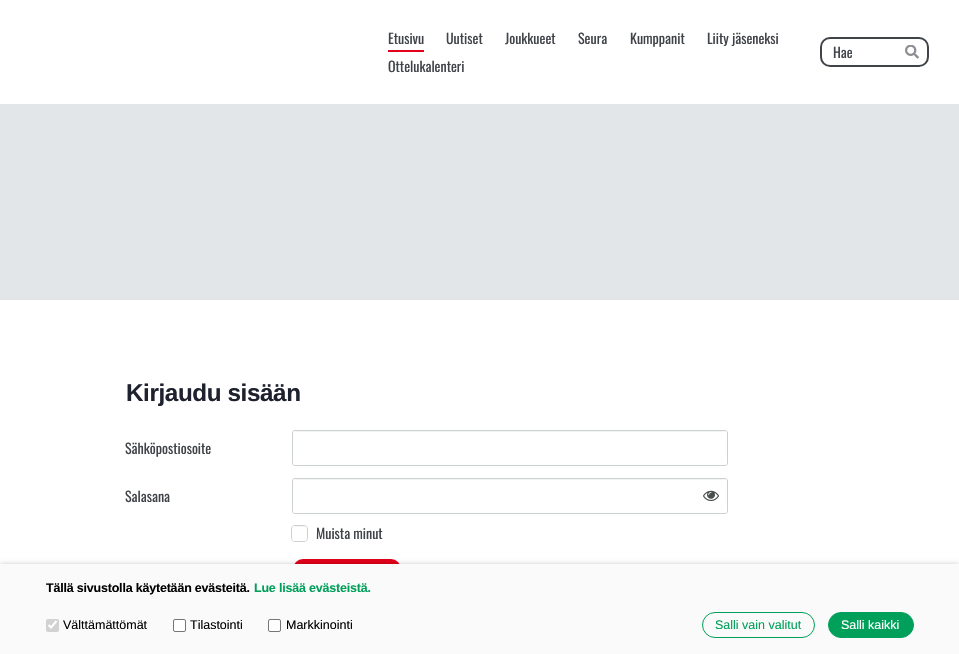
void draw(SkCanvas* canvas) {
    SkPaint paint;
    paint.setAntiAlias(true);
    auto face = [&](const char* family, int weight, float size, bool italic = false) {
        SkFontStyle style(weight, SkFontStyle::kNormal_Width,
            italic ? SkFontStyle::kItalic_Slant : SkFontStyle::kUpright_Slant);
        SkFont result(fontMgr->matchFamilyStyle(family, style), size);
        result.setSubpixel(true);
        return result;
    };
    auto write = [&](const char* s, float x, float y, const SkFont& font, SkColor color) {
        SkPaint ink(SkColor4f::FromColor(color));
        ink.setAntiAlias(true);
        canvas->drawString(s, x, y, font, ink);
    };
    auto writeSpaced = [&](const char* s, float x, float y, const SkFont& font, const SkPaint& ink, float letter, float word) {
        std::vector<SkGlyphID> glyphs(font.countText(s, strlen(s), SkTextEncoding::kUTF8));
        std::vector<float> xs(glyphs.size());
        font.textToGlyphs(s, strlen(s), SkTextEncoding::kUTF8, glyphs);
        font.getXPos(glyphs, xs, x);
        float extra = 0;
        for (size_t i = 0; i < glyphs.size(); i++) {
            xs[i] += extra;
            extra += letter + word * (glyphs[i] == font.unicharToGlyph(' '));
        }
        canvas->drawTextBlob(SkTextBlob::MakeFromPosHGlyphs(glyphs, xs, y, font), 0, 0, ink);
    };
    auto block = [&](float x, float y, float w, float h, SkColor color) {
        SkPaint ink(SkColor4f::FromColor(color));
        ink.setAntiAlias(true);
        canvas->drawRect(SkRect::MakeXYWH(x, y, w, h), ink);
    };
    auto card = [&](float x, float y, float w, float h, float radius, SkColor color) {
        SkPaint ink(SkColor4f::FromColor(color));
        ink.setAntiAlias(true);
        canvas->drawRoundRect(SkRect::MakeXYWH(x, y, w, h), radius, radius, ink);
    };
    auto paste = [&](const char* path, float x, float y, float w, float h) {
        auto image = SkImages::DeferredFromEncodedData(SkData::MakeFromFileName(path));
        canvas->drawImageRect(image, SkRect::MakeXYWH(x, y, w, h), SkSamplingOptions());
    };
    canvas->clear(SK_ColorWHITE);
    block(0, 104, 959, 196, SkColorSetRGB(226, 230, 233));
    auto kFont1 = face("Oswald", 400, 14);
    write("Etusivu", 388, 44, kFont1, SkColorSetRGB(64, 67, 72));
    block(388, 50, 36, 2, SkColorSetRGB(227, 0, 27));
    write("Uutiset", 446, 44, kFont1, SkColorSetRGB(64, 67, 72));
    write("Joukkueet", 505, 44, kFont1, SkColorSetRGB(64, 67, 72));
    write("Seura", 578, 44, kFont1, SkColorSetRGB(64, 67, 72));
    write("Kumppanit", 630, 44, kFont1, SkColorSetRGB(64, 67, 72));
    write("Liity jäseneksi", 707, 44, kFont1, SkColorSetRGB(64, 67, 72));
    write("Ottelukalenteri", 388, 72, kFont1, SkColorSetRGB(64, 67, 72));
    paint.setStyle(SkPaint::kStroke_Style);
    paint.setStrokeWidth(2);
    paint.setColor(SkColorSetRGB(64, 67, 72));
    canvas->drawRoundRect(SkRect::MakeXYWH(821, 38, 107, 28), 9, 9, paint);
    write("Hae", 833, 58, kFont1, SkColorSetRGB(64, 67, 72));
    paste("pic1.png", 905, 45, 14, 14);
    auto kFont2 = face("Liberation Sans", 700, 24.25f);
    paint.setStyle(SkPaint::kFill_Style);
    paint.setColor(SkColorSetRGB(30, 33, 46));
    writeSpaced("Kirjaudu sisään", 126, 401, kFont2, paint, -0.4f, 0);
    write("Sähköpostiosoite", 125, 454, kFont1, SkColorSetRGB(64, 67, 72));
    paint.setStyle(SkPaint::kStroke_Style);
    paint.setStrokeWidth(1);
    paint.setColor(SkColorSetRGB(203, 208, 208));
    canvas->drawRoundRect(SkRect::MakeXYWH(292.5f, 430.5f, 435, 35), 2.5f, 2.5f, paint);
    card(293, 431, 434, 34, 2, SK_ColorWHITE);
    paint.setStyle(SkPaint::kFill_Style);
    paint.setColor(SkColorSetRGB(245, 245, 246));
    canvas->drawPath(SkPathBuilder().moveTo(295, 432).lineTo(725, 432).cubicTo(726, 432, 727, 433, 727, 434).cubicTo(727, 433, 727, 431, 725, 431).lineTo(295, 431).lineTo(293, 432).lineTo(293, 434).cubicTo(293, 433, 294, 432, 295, 432).close().detach(), paint);
    write("Salasana", 125, 502, kFont1, SkColorSetRGB(64, 67, 72));
    paint.setStyle(SkPaint::kStroke_Style);
    paint.setColor(SkColorSetRGB(203, 208, 208));
    canvas->drawRoundRect(SkRect::MakeXYWH(292.5f, 478.5f, 435, 35), 2.5f, 2.5f, paint);
    card(293, 479, 434, 34, 2, SK_ColorWHITE);
    paint.setStyle(SkPaint::kFill_Style);
    paint.setColor(SkColorSetRGB(245, 245, 246));
    canvas->drawPath(SkPathBuilder().moveTo(295, 480).lineTo(725, 480).cubicTo(726, 480, 727, 481, 727, 482).cubicTo(727, 481, 727, 479, 725, 479).lineTo(295, 479).lineTo(293, 480).lineTo(293, 482).cubicTo(293, 481, 294, 480, 295, 480).close().detach(), paint);
    paste("pic2.png", 703, 490, 16, 11);
    paint.setStyle(SkPaint::kStroke_Style);
    paint.setColor(SkColorSetRGB(203, 208, 208));
    canvas->drawRoundRect(SkRect::MakeXYWH(291.5f, 525.5f, 16, 16), 3.5f, 3.5f, paint);
    card(292, 526, 15, 15, 3, SK_ColorWHITE);
    paint.setStyle(SkPaint::kFill_Style);
    paint.setColor(SkColorSetRGB(245, 245, 246));
    canvas->drawPath(SkPathBuilder().moveTo(295, 527).lineTo(305, 527).cubicTo(306, 527.5f, 307, 528.5f, 307, 529.5f).cubicTo(307, 525, 302.5f, 526, 299.5f, 526).cubicTo(296, 526, 292, 525, 292, 530).cubicTo(292, 528, 293, 527, 295, 527).close().detach(), paint);
    write("Muista minut", 316, 539, kFont1, SkColorSetRGB(64, 67, 72));
    card(293, 559, 108, 29, 10, SkColorSetRGB(227, 0, 27));
    paint.setColor(SkColorSetARGB(51, 0, 0, 0));
    paint.setMaskFilter(SkMaskFilter::MakeBlur(kNormal_SkBlurStyle, 2.5f));
    canvas->drawRect(SkRect::MakeXYWH(0, 564, 959, 90), paint);
    paint.setMaskFilter(nullptr);
    block(0, 564, 959, 90, SkColorSetRGB(250, 250, 250));
    auto kFont3 = face("Liberation Sans", 700, 12.5f);
    paint.setColor(SkColorSetRGB(2, 2, 2));
    writeSpaced("Tällä sivustolla käytetään evästeitä.", 46, 592, kFont3, paint, -0.2f, 0);
    paint.setColor(SkColorSetRGB(0, 160, 90));
    writeSpaced("Lue lisää evästeistä.", 254, 592, kFont3, paint, -0.2f, 0);
    card(46, 619, 13, 13, 2, SkColorSetRGB(210, 210, 210));
    paint.setStyle(SkPaint::kStroke_Style);
    paint.setStrokeWidth(2.1f);
    paint.setColor(SK_ColorWHITE);
    canvas->drawPath(SkPathBuilder().moveTo(48.5f, 625).lineTo(51, 627.5f).lineTo(56.5f, 621).detach(), paint);
    auto kFont4 = face("Liberation Sans", 400, 12.5f);
    write("Välttämättömät", 63, 629, kFont4, SkColorSetRGB(2, 2, 2));
    paint.setStyle(SkPaint::kFill_Style);
    canvas->drawRoundRect(SkRect::MakeXYWH(173.5f, 619.5f, 12, 12), 1.5f, 1.5f, paint);
    paint.setStyle(SkPaint::kStroke_Style);
    paint.setStrokeWidth(1);
    paint.setColor(SkColorSetRGB(118, 118, 118));
    canvas->drawRoundRect(SkRect::MakeXYWH(173.5f, 619.5f, 12, 12), 1.5f, 1.5f, paint);
    write("Tilastointi", 190, 629, kFont4, SkColorSetRGB(2, 2, 2));
    paint.setStyle(SkPaint::kFill_Style);
    paint.setColor(SK_ColorWHITE);
    canvas->drawRoundRect(SkRect::MakeXYWH(268.5f, 619.5f, 12, 12), 1.5f, 1.5f, paint);
    paint.setStyle(SkPaint::kStroke_Style);
    paint.setColor(SkColorSetRGB(118, 118, 118));
    canvas->drawRoundRect(SkRect::MakeXYWH(268.5f, 619.5f, 12, 12), 1.5f, 1.5f, paint);
    write("Markkinointi", 286, 629, kFont4, SkColorSetRGB(2, 2, 2));
    paint.setColor(SkColorSetRGB(0, 160, 90));
    canvas->drawRoundRect(SkRect::MakeXYWH(702.5f, 612.5f, 112, 25), 12.5f, 12.5f, paint);
    write("Salli vain valitut", 715, 629, kFont4, SkColorSetRGB(0, 160, 90));
    paint.setStyle(SkPaint::kFill_Style);
    canvas->drawRoundRect(SkRect::MakeXYWH(828.5f, 612.5f, 85, 25), 12.5f, 12.5f, paint);
    paint.setStyle(SkPaint::kStroke_Style);
    canvas->drawRoundRect(SkRect::MakeXYWH(828.5f, 612.5f, 85, 25), 12.5f, 12.5f, paint);
    write("Salli kaikki", 841, 629, kFont4, SK_ColorWHITE);
}
